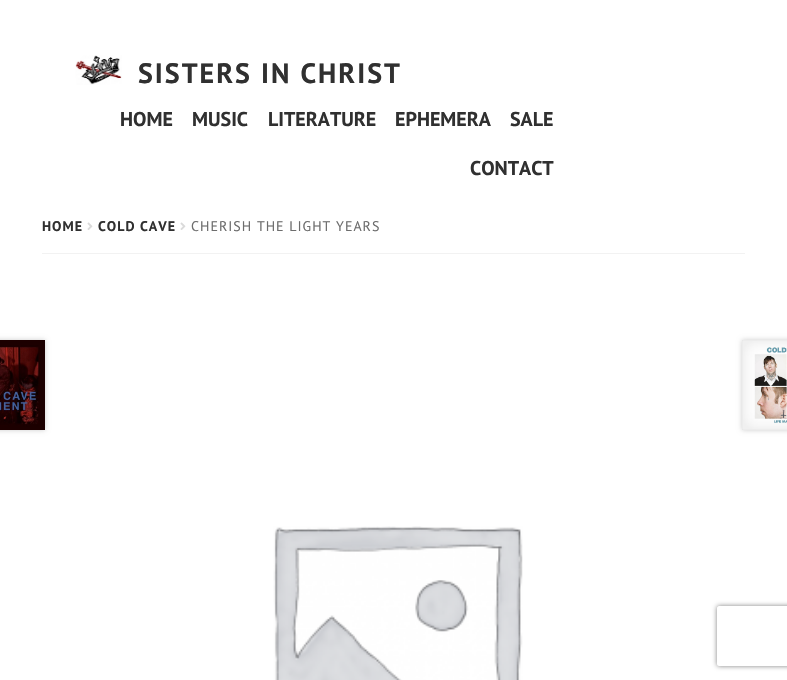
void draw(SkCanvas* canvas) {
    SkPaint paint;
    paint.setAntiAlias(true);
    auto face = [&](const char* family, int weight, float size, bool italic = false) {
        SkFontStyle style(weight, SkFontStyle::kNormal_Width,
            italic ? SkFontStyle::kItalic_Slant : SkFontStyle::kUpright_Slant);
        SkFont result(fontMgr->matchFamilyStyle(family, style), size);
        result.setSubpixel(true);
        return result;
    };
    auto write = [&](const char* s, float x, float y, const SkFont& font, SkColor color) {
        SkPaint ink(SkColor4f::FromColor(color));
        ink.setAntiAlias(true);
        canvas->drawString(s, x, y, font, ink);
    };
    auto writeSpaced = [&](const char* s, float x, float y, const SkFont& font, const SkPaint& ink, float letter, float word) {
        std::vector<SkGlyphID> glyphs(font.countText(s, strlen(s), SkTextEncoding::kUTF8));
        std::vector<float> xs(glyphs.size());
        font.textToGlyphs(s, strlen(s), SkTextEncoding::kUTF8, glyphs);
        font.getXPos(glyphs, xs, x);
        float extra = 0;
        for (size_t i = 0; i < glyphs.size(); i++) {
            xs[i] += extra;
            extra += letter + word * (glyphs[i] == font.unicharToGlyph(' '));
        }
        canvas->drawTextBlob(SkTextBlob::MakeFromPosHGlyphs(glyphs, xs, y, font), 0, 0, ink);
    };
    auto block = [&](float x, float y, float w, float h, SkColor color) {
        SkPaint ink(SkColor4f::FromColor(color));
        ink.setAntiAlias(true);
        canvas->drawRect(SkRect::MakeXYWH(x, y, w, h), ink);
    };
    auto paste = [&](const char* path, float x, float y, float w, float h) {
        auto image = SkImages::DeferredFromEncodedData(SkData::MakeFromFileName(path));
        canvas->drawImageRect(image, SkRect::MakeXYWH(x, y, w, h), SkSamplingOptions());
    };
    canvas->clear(SK_ColorWHITE);
    paste("pic1.png", 75, 55, 47, 30);
    auto kFont1 = face("PT Sans", 700, 28);
    paint.setColor(SkColorSetRGB(48, 48, 48));
    writeSpaced("SISTERS IN CHRIST", 138, 83, kFont1, paint, 2, 0);
    auto kFont2 = face("PT Sans", 700, 20);
    write("HOME", 120, 126, kFont2, SkColorSetRGB(48, 48, 48));
    write("MUSIC", 192, 126, kFont2, SkColorSetRGB(48, 48, 48));
    write("LITERATURE", 268, 126, kFont2, SkColorSetRGB(48, 48, 48));
    write("EPHEMERA", 395, 126, kFont2, SkColorSetRGB(48, 48, 48));
    write("SALE", 510, 126, kFont2, SkColorSetRGB(48, 48, 48));
    write("CONTACT", 470, 175, kFont2, SkColorSetRGB(48, 48, 48));
    block(42, 253, 703, 1, SkColorSetRGB(242, 242, 242));
    auto kFont3 = face("PT Sans", 700, 14);
    writeSpaced("HOME", 42, 231, kFont3, paint, 1, 0);
    paste("pic2.png", 87, 222, 6, 8);
    writeSpaced("COLD CAVE", 98, 231, kFont3, paint, 1, 0);
    paste("pic2.png", 180, 222, 6, 8);
    auto kFont4 = face("PT Sans", 400, 14);
    paint.setColor(SkColorSetRGB(109, 109, 109));
    writeSpaced("CHERISH THE LIGHT YEARS", 191, 231, kFont4, paint, 1, 0);
    paint.setColor(SkColorSetARGB(51, 0, 0, 0));
    paint.setMaskFilter(SkMaskFilter::MakeBlur(kNormal_SkBlurStyle, 2.5f));
    canvas->drawRect(SkRect::MakeXYWH(-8, 340, 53, 90), paint);
    paint.setMaskFilter(nullptr);
    paste("pic3.png", 0, 340, 45, 90);
    paint.setMaskFilter(SkMaskFilter::MakeBlur(kNormal_SkBlurStyle, 2.5f));
    canvas->drawRect(SkRect::MakeXYWH(742, 340, 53, 90), paint);
    paint.setMaskFilter(nullptr);
    paste("pic4.png", 742, 340, 45, 90);
    paste("pic5.png", 273, 526, 250, 154);
    canvas->save();
    canvas->clipPath(SkPathBuilder(SkPathFillType::kEvenOdd).moveTo(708, 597).lineTo(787, 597).lineTo(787, 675).lineTo(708, 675).close().moveTo(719, 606).lineTo(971, 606).cubicTo(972, 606, 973, 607, 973, 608).lineTo(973, 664).cubicTo(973, 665, 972, 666, 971, 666).lineTo(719, 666).cubicTo(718, 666, 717, 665, 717, 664).lineTo(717, 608).cubicTo(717, 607, 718, 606, 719, 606).close().detach(), true);
    paint.setColor(SkColorSetRGB(128, 128, 128));
    paint.setMaskFilter(SkMaskFilter::MakeBlur(kNormal_SkBlurStyle, 2.5f));
    canvas->drawRoundRect(SkRect::MakeXYWH(717, 606, 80, 60), 2, 2, paint);
    paint.setMaskFilter(nullptr);
    canvas->restore();
}
